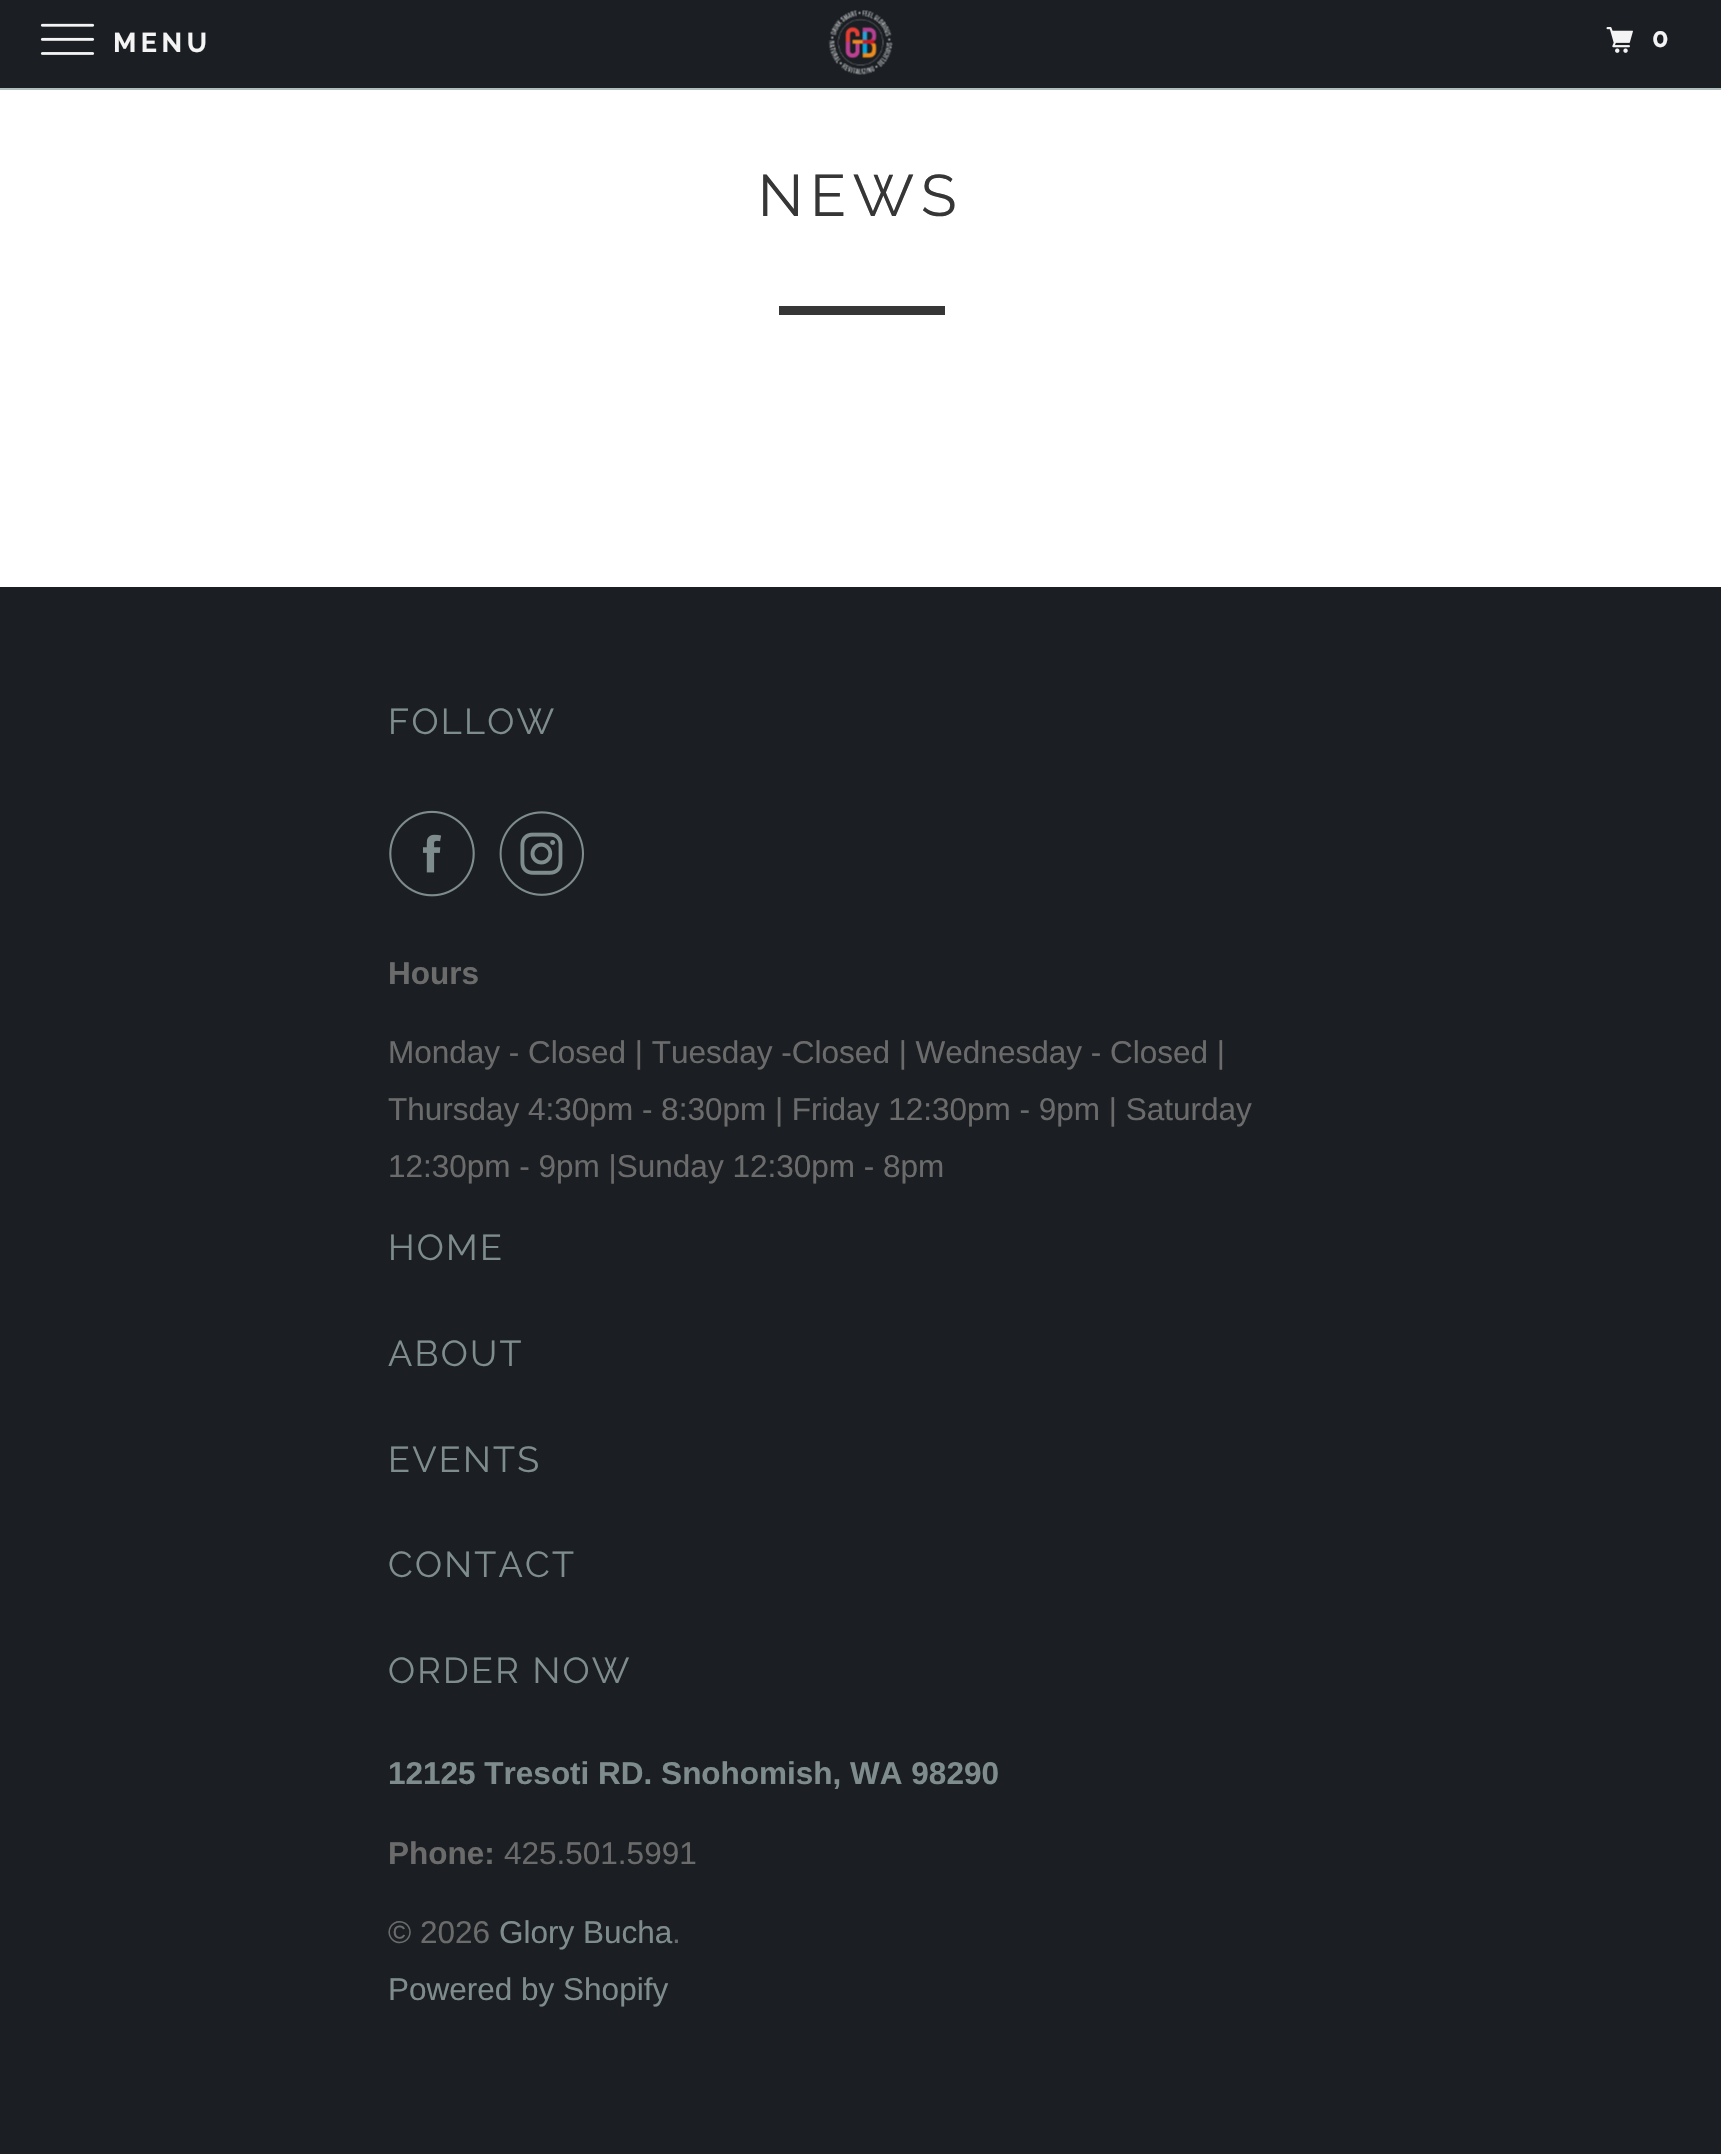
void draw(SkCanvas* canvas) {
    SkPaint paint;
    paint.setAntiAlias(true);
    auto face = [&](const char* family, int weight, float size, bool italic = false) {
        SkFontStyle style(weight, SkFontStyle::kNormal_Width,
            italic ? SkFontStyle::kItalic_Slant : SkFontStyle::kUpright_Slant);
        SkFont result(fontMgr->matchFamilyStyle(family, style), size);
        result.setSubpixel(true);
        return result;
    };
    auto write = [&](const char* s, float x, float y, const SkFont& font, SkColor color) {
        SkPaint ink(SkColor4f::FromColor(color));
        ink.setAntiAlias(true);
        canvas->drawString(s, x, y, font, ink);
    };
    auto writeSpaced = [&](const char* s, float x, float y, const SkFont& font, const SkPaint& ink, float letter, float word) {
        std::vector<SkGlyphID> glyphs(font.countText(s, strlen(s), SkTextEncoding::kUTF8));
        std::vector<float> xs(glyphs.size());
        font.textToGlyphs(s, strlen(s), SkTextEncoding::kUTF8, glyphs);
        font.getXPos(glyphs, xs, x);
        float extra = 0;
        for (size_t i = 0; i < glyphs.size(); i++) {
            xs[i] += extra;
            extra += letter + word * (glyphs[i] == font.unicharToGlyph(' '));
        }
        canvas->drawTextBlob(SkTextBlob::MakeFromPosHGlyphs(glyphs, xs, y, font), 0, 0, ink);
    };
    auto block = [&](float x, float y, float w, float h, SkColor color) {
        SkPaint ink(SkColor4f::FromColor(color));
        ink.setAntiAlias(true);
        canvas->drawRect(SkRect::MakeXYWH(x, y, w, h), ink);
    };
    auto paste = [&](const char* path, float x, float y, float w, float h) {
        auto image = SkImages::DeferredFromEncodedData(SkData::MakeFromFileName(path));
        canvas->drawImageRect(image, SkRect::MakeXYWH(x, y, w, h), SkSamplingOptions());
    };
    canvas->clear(SkColorSetRGB(27, 31, 35));
    block(0, 88, 1721, 2, SkColorSetRGB(176, 190, 190));
    paste("pic1.png", 40, 23, 55, 32);
    auto kFont1 = face("Raleway", 700, 27);
    paint.setColor(SkColorSetRGB(244, 244, 244));
    writeSpaced("MENU", 113, 52, kFont1, paint, 4.5f, 0);
    paste("pic2.png", 828, 10, 65, 65);
    paste("pic3.png", 1606, 27, 27, 26);
    writeSpaced("0", 1652, 47, kFont1, paint, 4.5f, 0);
    block(0, 90, 1721, 497, SK_ColorWHITE);
    auto kFont2 = face("Raleway", 400, 58.5f);
    paint.setColor(SkColorSetRGB(54, 54, 54));
    writeSpaced("NEWS", 758, 216, kFont2, paint, 7, 0);
    block(779, 306, 166, 9, SkColorSetRGB(54, 54, 54));
    auto kFont3 = face("Raleway", 400, 36);
    paint.setColor(SkColorSetRGB(127, 140, 141));
    writeSpaced("FOLLOW", 388, 734, kFont3, paint, 2.25f, 0);
    paste("pic4.png", 389, 810, 86, 87);
    paste("pic5.png", 499, 811, 85, 85);
    auto kFont4 = face("Liberation Sans", 700, 31.5f);
    write("Hours", 388, 984, kFont4, SkColorSetRGB(107, 107, 107));
    auto kFont5 = face("Liberation Sans", 400, 31.5f);
    write("Monday - Closed | Tuesday -Closed | Wednesday - Closed |", 388, 1063, kFont5, SkColorSetRGB(107, 107, 107));
    write("Thursday 4:30pm - 8:30pm | Friday 12:30pm - 9pm | Saturday", 388, 1120, kFont5, SkColorSetRGB(107, 107, 107));
    write("12:30pm - 9pm |Sunday 12:30pm - 8pm", 388, 1177, kFont5, SkColorSetRGB(107, 107, 107));
    writeSpaced("HOME", 388, 1260, kFont3, paint, 2.25f, 0);
    writeSpaced("ABOUT", 388, 1366, kFont3, paint, 2.25f, 0);
    writeSpaced("EVENTS", 388, 1472, kFont3, paint, 2.25f, 0);
    writeSpaced("CONTACT", 388, 1577, kFont3, paint, 2.25f, 0);
    writeSpaced("ORDER NOW", 388, 1683, kFont3, paint, 2.25f, 0);
    write("12125 Tresoti RD. Snohomish, WA 98290", 388, 1784, kFont4, SkColorSetRGB(127, 140, 141));
    write("Phone:", 388, 1864, kFont4, SkColorSetRGB(107, 107, 107));
    write("425.501.5991", 504, 1864, kFont5, SkColorSetRGB(107, 107, 107));
    write("© 2026", 388, 1943, kFont5, SkColorSetRGB(107, 107, 107));
    write("Glory Bucha", 499, 1943, kFont5, SkColorSetRGB(127, 140, 141));
    write(".", 672, 1943, kFont5, SkColorSetRGB(107, 107, 107));
    write("Powered by Shopify", 388, 2000, kFont5, SkColorSetRGB(127, 140, 141));
}
